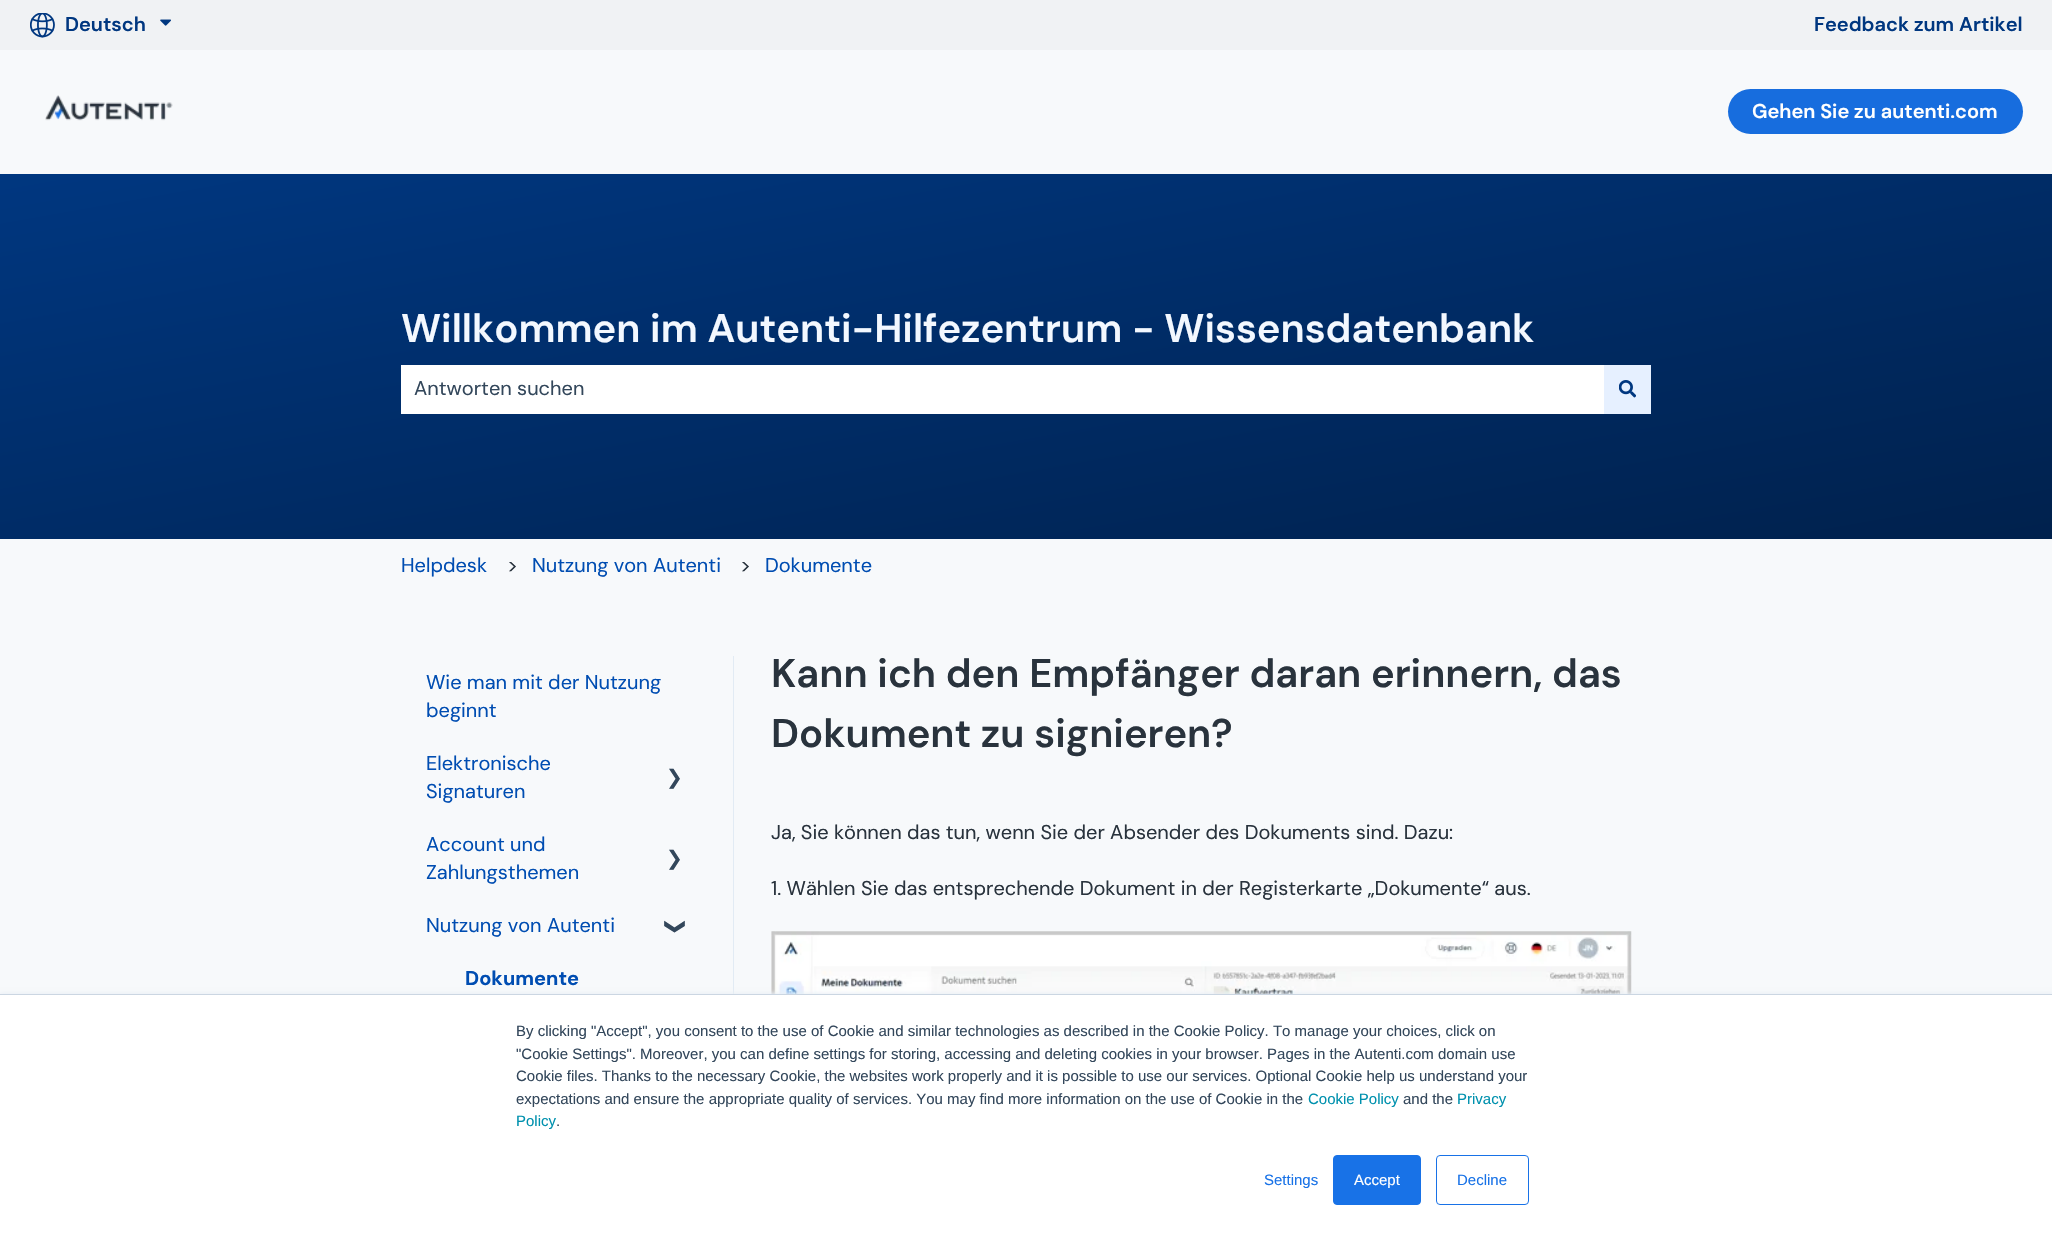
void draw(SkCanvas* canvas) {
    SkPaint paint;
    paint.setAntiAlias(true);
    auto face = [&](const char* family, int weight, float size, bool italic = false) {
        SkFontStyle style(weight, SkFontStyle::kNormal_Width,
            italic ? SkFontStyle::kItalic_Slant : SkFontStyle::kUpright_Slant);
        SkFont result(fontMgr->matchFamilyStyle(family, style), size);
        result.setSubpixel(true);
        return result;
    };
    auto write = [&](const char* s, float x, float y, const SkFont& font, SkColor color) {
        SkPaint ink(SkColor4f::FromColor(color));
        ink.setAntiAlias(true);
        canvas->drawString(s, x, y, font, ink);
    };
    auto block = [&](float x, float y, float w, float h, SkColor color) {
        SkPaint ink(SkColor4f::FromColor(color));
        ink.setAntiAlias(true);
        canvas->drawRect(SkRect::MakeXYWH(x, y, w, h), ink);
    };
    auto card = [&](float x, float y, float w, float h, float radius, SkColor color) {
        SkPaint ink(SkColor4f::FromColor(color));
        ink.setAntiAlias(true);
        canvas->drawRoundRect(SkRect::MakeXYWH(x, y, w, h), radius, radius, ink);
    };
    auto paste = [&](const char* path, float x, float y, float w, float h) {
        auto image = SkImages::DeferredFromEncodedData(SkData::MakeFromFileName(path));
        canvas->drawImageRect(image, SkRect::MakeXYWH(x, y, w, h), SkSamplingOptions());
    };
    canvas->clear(SkColorSetRGB(247, 249, 251));
    block(0, 0, 2052, 50, SkColorSetRGB(240, 242, 244));
    paste("pic1.png", 30, 13, 25, 25);
    auto kFont1 = face("DM Sans", 600, 20);
    write("Deutsch", 65, 31, kFont1, SkColorSetRGB(0, 55, 128));
    paste("pic2.png", 160, 19, 11, 7);
    write("Feedback zum Artikel", 1814, 31, kFont1, SkColorSetRGB(0, 55, 128));
    paste("pic3.png", 45, 95, 128, 26);
    card(1728, 89, 295, 45, 22.5f, SkColorSetRGB(23, 109, 222));
    write("Gehen Sie zu autenti.com", 1752, 118, kFont1, SK_ColorWHITE);
    {
        const SkColor colors[] = {SkColorSetRGB(0, 55, 128), SkColorSetRGB(0, 33, 77)};
        const float stops[] = {0, 1};
        const SkPoint ends[] = {{963, 2.4f}, {1089, 710}};
        paint.setShader(SkGradientShader::MakeLinear(ends, colors, stops, 2, SkTileMode::kClamp));
        paint.setAlpha(255);
    }
    canvas->drawRect(SkRect::MakeXYWH(0, 174, 2052, 365), paint);
    auto kFont2 = face("DM Sans", 600, 40);
    write("Willkommen im Autenti-Hilfezentrum - Wissensdatenbank", 401, 342, kFont2, SkColorSetRGB(243, 248, 255));
    block(401, 365, 1203, 49, SK_ColorWHITE);
    auto kFont3 = face("DM Sans", 400, 20);
    write("Antworten suchen", 414, 395, kFont3, SkColorSetRGB(51, 71, 91));
    block(1604, 365, 47, 49, SkColorSetRGB(230, 240, 255));
    paste("pic4.png", 1619, 380, 17, 18);
    write("Helpdesk", 401, 572, kFont3, SkColorSetRGB(0, 77, 178));
    write(">", 507, 572, kFont3, SkColorSetRGB(41, 51, 61));
    write("Nutzung von Autenti", 532, 572, kFont3, SkColorSetRGB(0, 77, 178));
    write(">", 740, 572, kFont3, SkColorSetRGB(41, 51, 61));
    write("Dokumente", 765, 572, kFont3, SkColorSetRGB(0, 77, 178));
    block(733, 656, 1, 338, SkColorSetRGB(226, 235, 244));
    write("Wie man mit der Nutzung", 426, 689, kFont3, SkColorSetRGB(0, 77, 178));
    write("beginnt", 426, 717, kFont3, SkColorSetRGB(0, 77, 178));
    write("Elektronische", 426, 770, kFont3, SkColorSetRGB(0, 77, 178));
    write("Signaturen", 426, 798, kFont3, SkColorSetRGB(0, 77, 178));
    auto kFont4 = face("DejaVu Sans", 400, 20);
    write("❯", 666, 784, kFont4, SkColorSetRGB(51, 71, 91));
    write("Account und", 426, 851, kFont3, SkColorSetRGB(0, 77, 178));
    write("Zahlungsthemen", 426, 879, kFont3, SkColorSetRGB(0, 77, 178));
    write("❯", 666, 865, kFont4, SkColorSetRGB(51, 71, 91));
    write("Nutzung von Autenti", 426, 932, kFont3, SkColorSetRGB(0, 77, 178));
    auto kFont5 = face("DejaVu Sans", 700, 20);
    canvas->save();
    canvas->rotate(90, 669, 918);
    write("❯", 669, 918, kFont5, SkColorSetRGB(51, 71, 91));
    canvas->restore();
    auto kFont6 = face("DM Sans", 700, 20);
    write("Dokumente", 465, 985, kFont6, SkColorSetRGB(0, 77, 178));
    write("Kann ich den Empfänger daran erinnern, das", 771, 687, kFont2, SkColorSetRGB(41, 51, 61));
    write("Dokument zu signieren?", 771, 747, kFont2, SkColorSetRGB(41, 51, 61));
    write("Ja, Sie können das tun, wenn Sie der Absender des Dokuments sind. Dazu:", 771, 839, kFont3, SkColorSetRGB(41, 51, 61));
    write("1. Wählen Sie das entsprechende Dokument in der Registerkarte „Dokumente“ aus.", 771, 895, kFont3, SkColorSetRGB(41, 51, 61));
    paste("pic5.png", 771, 931, 861, 63);
    paint.setShader(nullptr);
    paint.setColor(SkColorSetRGB(234, 240, 246));
    paint.setMaskFilter(SkMaskFilter::MakeBlur(kNormal_SkBlurStyle, 2));
    canvas->drawRect(SkRect::MakeXYWH(0, 993, 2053, 243), paint);
    paint.setMaskFilter(nullptr);
    block(0, 995, 2052, 242, SK_ColorWHITE);
    block(0, 994, 2052, 1, SkColorSetRGB(203, 214, 226));
    auto kFont7 = face("Liberation Sans", 400, 15);
    write("By clicking \"Accept\", you consent to the use of Cookie and similar technologies as described in the Cookie Policy. To manage your choices, click on", 516, 1036, kFont7, SkColorSetRGB(51, 71, 91));
    write("\"Cookie Settings\". Moreover, you can define settings for storing, accessing and deleting cookies in your browser. Pages in the Autenti.com domain use", 516, 1059, kFont7, SkColorSetRGB(51, 71, 91));
    write("Cookie files. Thanks to the necessary Cookie, the websites work properly and it is possible to use our services. Optional Cookie help us understand your", 516, 1081, kFont7, SkColorSetRGB(51, 71, 91));
    write("expectations and ensure the appropriate quality of services. You may find more information on the use of Cookie in the", 516, 1104, kFont7, SkColorSetRGB(51, 71, 91));
    write("Cookie Policy", 1308, 1104, kFont7, SkColorSetRGB(0, 145, 174));
    write("and the", 1403, 1104, kFont7, SkColorSetRGB(51, 71, 91));
    write("Privacy", 1457, 1104, kFont7, SkColorSetRGB(0, 145, 174));
    write("Policy", 516, 1126, kFont7, SkColorSetRGB(0, 145, 174));
    write(".", 556, 1126, kFont7, SkColorSetRGB(51, 71, 91));
    write("Settings", 1264, 1185, kFont7, SkColorSetRGB(24, 114, 231));
    paint.setColor(SkColorSetRGB(24, 114, 231));
    canvas->drawRoundRect(SkRect::MakeXYWH(1333.5f, 1155.5f, 87, 49), 3.5f, 3.5f, paint);
    paint.setStyle(SkPaint::kStroke_Style);
    paint.setStrokeWidth(1);
    canvas->drawRoundRect(SkRect::MakeXYWH(1333.5f, 1155.5f, 87, 49), 3.5f, 3.5f, paint);
    write("Accept", 1354, 1185, kFont7, SK_ColorWHITE);
    canvas->drawRoundRect(SkRect::MakeXYWH(1436.5f, 1155.5f, 92, 49), 3.5f, 3.5f, paint);
    write("Decline", 1457, 1185, kFont7, SkColorSetRGB(24, 114, 231));
}
